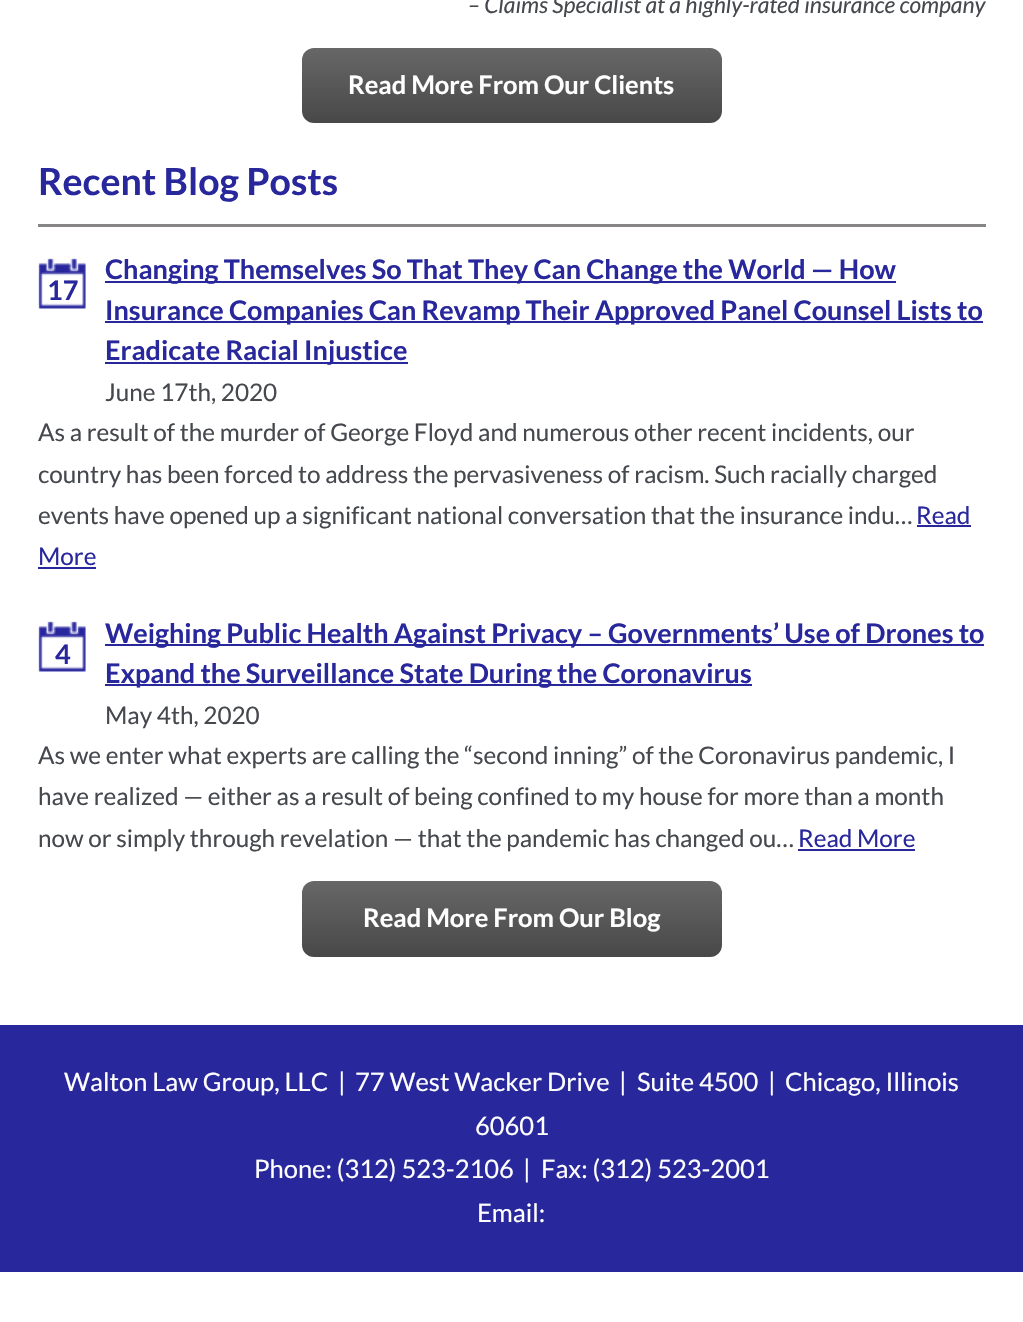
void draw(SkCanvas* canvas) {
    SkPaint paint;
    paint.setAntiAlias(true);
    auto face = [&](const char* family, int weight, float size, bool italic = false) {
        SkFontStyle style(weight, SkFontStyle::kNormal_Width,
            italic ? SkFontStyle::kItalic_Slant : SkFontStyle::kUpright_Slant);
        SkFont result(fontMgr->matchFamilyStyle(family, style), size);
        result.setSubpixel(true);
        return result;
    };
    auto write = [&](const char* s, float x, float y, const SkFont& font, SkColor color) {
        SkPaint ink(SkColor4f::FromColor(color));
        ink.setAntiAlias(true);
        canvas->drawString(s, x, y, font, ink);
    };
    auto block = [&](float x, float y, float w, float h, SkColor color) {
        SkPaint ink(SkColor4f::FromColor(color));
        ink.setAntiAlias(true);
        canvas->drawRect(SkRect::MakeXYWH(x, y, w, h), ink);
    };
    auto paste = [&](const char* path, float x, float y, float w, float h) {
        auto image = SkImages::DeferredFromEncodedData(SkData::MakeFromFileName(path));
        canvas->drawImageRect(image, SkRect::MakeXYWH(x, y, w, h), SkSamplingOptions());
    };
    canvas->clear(SK_ColorWHITE);
    auto kFont1 = face("Lato", 400, 22.95f, true);
    write("– Claims Specialist at a highly-rated insurance company", 468, 13, kFont1, SkColorSetRGB(69, 72, 77));
    {
        const SkColor colors[] = {SkColorSetRGB(103, 103, 103), SkColorSetRGB(72, 72, 72)};
        const float stops[] = {0, 1};
        const SkPoint ends[] = {{512, 48}, {512, 123}};
        paint.setShader(SkGradientShader::MakeLinear(ends, colors, stops, 2, SkTileMode::kClamp));
        paint.setAlpha(255);
    }
    canvas->drawRoundRect(SkRect::MakeXYWH(302, 48, 420, 75), 12, 12, paint);
    auto kFont2 = face("Lato", 700, 25.5f);
    write("Read More From Our Clients", 348, 94, kFont2, SK_ColorWHITE);
    block(38, 224, 948, 3, SkColorSetRGB(135, 133, 133));
    auto kFont3 = face("Lato", 700, 37.5f);
    write("Recent Blog Posts", 38, 195, kFont3, SkColorSetRGB(40, 39, 156));
    paste("pic1.png", 38, 258, 48, 51);
    auto kFont4 = face("Lato", 700, 27);
    write("17", 47, 300, kFont4, SkColorSetRGB(40, 39, 156));
    block(105, 281, 791, 2, SkColorSetRGB(40, 39, 156));
    write("Changing Themselves So That They Can Change the World — How", 105, 279, kFont4, SkColorSetRGB(40, 39, 156));
    block(105, 321, 878, 2, SkColorSetRGB(40, 39, 156));
    write("Insurance Companies Can Revamp Their Approved Panel Counsel Lists to", 105, 320, kFont4, SkColorSetRGB(40, 39, 156));
    block(105, 362, 303, 2, SkColorSetRGB(40, 39, 156));
    write("Eradicate Racial Injustice", 105, 360, kFont4, SkColorSetRGB(40, 39, 156));
    auto kFont5 = face("Lato", 400, 24.3f);
    write("June 17th, 2020", 105, 401, kFont5, SkColorSetRGB(69, 72, 77));
    write("As a result of the murder of George Floyd and numerous other recent incidents, our", 38, 441, kFont5, SkColorSetRGB(69, 72, 77));
    write("country has been forced to address the pervasiveness of racism. Such racially charged", 38, 483, kFont5, SkColorSetRGB(69, 72, 77));
    write("events have opened up a significant national conversation that the insurance indu…", 38, 524, kFont5, SkColorSetRGB(69, 72, 77));
    write("Read", 916, 524, kFont5, SkColorSetRGB(40, 39, 156));
    block(917, 525, 54, 2, SkColorSetRGB(40, 39, 156));
    write("More", 38, 565, kFont5, SkColorSetRGB(40, 39, 156));
    block(38, 567, 58, 2, SkColorSetRGB(40, 39, 156));
    paste("pic1.png", 38, 621, 48, 51);
    write("4", 55, 664, kFont4, SkColorSetRGB(40, 39, 156));
    block(105, 644, 879, 2, SkColorSetRGB(40, 39, 156));
    write("Weighing Public Health Against Privacy – Governments’ Use of Drones to", 105, 643, kFont4, SkColorSetRGB(40, 39, 156));
    block(105, 684, 647, 2, SkColorSetRGB(40, 39, 156));
    write("Expand the Surveillance State During the Coronavirus", 105, 683, kFont4, SkColorSetRGB(40, 39, 156));
    write("May 4th, 2020", 105, 724, kFont5, SkColorSetRGB(69, 72, 77));
    write("As we enter what experts are calling the “second inning” of the Coronavirus pandemic, I", 38, 764, kFont5, SkColorSetRGB(69, 72, 77));
    write("have realized — either as a result of being confined to my house for more than a month", 38, 805, kFont5, SkColorSetRGB(69, 72, 77));
    write("now or simply through revelation — that the pandemic has changed ou…", 38, 847, kFont5, SkColorSetRGB(69, 72, 77));
    write("Read More", 798, 847, kFont5, SkColorSetRGB(40, 39, 156));
    block(798, 849, 117, 2, SkColorSetRGB(40, 39, 156));
    {
        const SkColor colors[] = {SkColorSetRGB(103, 103, 103), SkColorSetRGB(72, 72, 72)};
        const float stops[] = {0, 1};
        const SkPoint ends[] = {{512, 881}, {512, 957}};
        paint.setShader(SkGradientShader::MakeLinear(ends, colors, stops, 2, SkTileMode::kClamp));
        paint.setAlpha(255);
    }
    canvas->drawRoundRect(SkRect::MakeXYWH(302, 881, 420, 76), 12, 12, paint);
    write("Read More From Our Blog", 363, 927, kFont2, SK_ColorWHITE);
    block(0, 1025, 1023, 247, SkColorSetRGB(40, 39, 156));
    auto kFont6 = face("Lato", 400, 25.5f);
    write("Walton Law Group, LLC", 64, 1091, kFont6, SK_ColorWHITE);
    write("|", 338, 1091, kFont6, SK_ColorWHITE);
    write("77 West Wacker Drive", 355, 1091, kFont6, SK_ColorWHITE);
    write("|", 619, 1091, kFont6, SK_ColorWHITE);
    write("Suite 4500", 637, 1091, kFont6, SK_ColorWHITE);
    write("|", 768, 1091, kFont6, SK_ColorWHITE);
    write("Chicago, Illinois", 785, 1091, kFont6, SK_ColorWHITE);
    write("60601", 475, 1135, kFont6, SK_ColorWHITE);
    write("Phone: (312) 523-2106", 254, 1178, kFont6, SK_ColorWHITE);
    write("|", 523, 1178, kFont6, SK_ColorWHITE);
    write("Fax: (312) 523-2001", 541, 1178, kFont6, SK_ColorWHITE);
    write("Email:", 477, 1222, kFont6, SK_ColorWHITE);
}
